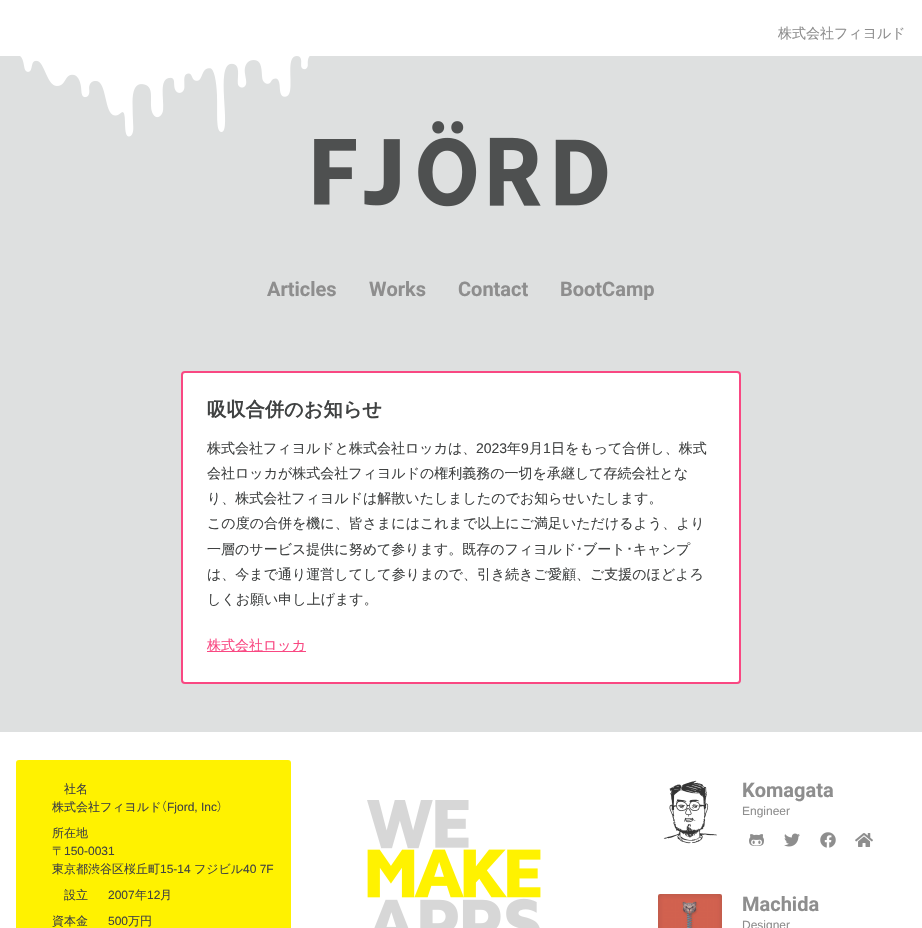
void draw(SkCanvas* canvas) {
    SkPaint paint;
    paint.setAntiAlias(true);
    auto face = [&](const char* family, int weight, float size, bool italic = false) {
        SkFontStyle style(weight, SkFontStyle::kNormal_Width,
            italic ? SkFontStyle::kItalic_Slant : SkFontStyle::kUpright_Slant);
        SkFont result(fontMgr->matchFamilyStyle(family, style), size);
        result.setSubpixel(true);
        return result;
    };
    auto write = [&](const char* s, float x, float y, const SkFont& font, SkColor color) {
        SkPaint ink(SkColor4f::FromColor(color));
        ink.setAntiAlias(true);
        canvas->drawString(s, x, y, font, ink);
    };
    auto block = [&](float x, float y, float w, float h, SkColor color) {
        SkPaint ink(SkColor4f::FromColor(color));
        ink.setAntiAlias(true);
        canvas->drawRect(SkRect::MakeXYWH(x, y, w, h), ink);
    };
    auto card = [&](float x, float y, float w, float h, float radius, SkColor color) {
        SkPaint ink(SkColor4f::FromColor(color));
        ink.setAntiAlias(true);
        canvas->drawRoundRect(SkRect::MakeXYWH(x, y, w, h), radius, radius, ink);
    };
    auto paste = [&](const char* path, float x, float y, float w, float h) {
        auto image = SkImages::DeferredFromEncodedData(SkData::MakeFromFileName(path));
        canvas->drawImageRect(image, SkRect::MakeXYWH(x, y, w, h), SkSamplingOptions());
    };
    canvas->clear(SkColorSetRGB(222, 224, 224));
    block(0, 0, 922, 56, SK_ColorWHITE);
    auto kFont1 = face("WenQuanYi Zen Hei", 500, 14);
    write("株式会社フィヨルド", 778, 38, kFont1, SkColorSetRGB(142, 142, 142));
    paste("pic1.png", 20, 56, 290, 81);
    paste("pic2.png", 314, 121, 294, 86);
    auto kFont2 = face("Roboto", 700, 20);
    write("Articles", 267, 296, kFont2, SkColorSetRGB(142, 142, 142));
    write("Works", 369, 296, kFont2, SkColorSetRGB(142, 142, 142));
    write("Contact", 458, 296, kFont2, SkColorSetRGB(142, 142, 142));
    write("BootCamp", 560, 296, kFont2, SkColorSetRGB(142, 142, 142));
    paint.setColor(SK_ColorWHITE);
    canvas->drawRoundRect(SkRect::MakeXYWH(182, 372, 558, 311), 3, 3, paint);
    paint.setStyle(SkPaint::kStroke_Style);
    paint.setStrokeWidth(2);
    paint.setColor(SkColorSetRGB(249, 72, 130));
    canvas->drawRoundRect(SkRect::MakeXYWH(182, 372, 558, 311), 3, 3, paint);
    auto kFont3 = face("WenQuanYi Zen Hei", 700, 19.25f);
    write("吸収合併のお知らせ", 207, 416, kFont3, SkColorSetRGB(64, 66, 66));
    write("株式会社フィヨルドと株式会社ロッカは、", 207, 453, kFont1, SkColorSetRGB(64, 66, 66));
    auto kFont4 = face("Liberation Sans", 400, 14);
    write("2023", 476, 453, kFont4, SkColorSetRGB(64, 66, 66));
    write("年", 507, 453, kFont1, SkColorSetRGB(64, 66, 66));
    write("9", 521, 453, kFont4, SkColorSetRGB(64, 66, 66));
    write("月", 529, 453, kFont1, SkColorSetRGB(64, 66, 66));
    write("1", 543, 453, kFont4, SkColorSetRGB(64, 66, 66));
    write("日をもって合併し、株式", 551, 453, kFont1, SkColorSetRGB(64, 66, 66));
    write("会社ロッカが株式会社フィヨルドの権利義務の一切を承継して存続会社とな", 207, 478, kFont1, SkColorSetRGB(64, 66, 66));
    write("り、株式会社フィヨルドは解散いたしましたのでお知らせいたします。", 207, 503, kFont1, SkColorSetRGB(64, 66, 66));
    write("この度の合併を機に、皆さまにはこれまで以上にご満足いただけるよう、より", 207, 528, kFont1, SkColorSetRGB(64, 66, 66));
    write("一層のサービス提供に努めて参ります。既存のフィヨルド", 207, 554, kFont1, SkColorSetRGB(64, 66, 66));
    auto kFont5 = face("IPAPGothic", 400, 14);
    write("･", 576, 554, kFont5, SkColorSetRGB(64, 66, 66));
    write("ブート", 583, 554, kFont1, SkColorSetRGB(64, 66, 66));
    write("･", 626, 554, kFont5, SkColorSetRGB(64, 66, 66));
    write("キャンプ", 633, 554, kFont1, SkColorSetRGB(64, 66, 66));
    write("は、今まで通り運営してして参りまので、引き続きご愛顧、ご支援のほどよろ", 207, 579, kFont1, SkColorSetRGB(64, 66, 66));
    write("しくお願い申し上げます。", 207, 604, kFont1, SkColorSetRGB(64, 66, 66));
    block(207, 651, 99, 1, SkColorSetRGB(249, 72, 130));
    write("株式会社ロッカ", 207, 650, kFont1, SkColorSetRGB(249, 72, 130));
    block(0, 732, 922, 196, SK_ColorWHITE);
    card(16, 760, 275, 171, 3, SkColorSetRGB(255, 242, 0));
    auto kFont6 = face("WenQuanYi Zen Hei", 500, 12);
    write("社名", 64, 793, kFont6, SkColorSetRGB(64, 66, 66));
    write("株式会社フィヨルド", 52, 811, kFont6, SkColorSetRGB(64, 66, 66));
    auto kFont7 = face("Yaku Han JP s", 300, 12);
    write("（", 161, 811, kFont7, SkColorSetRGB(64, 66, 66));
    auto kFont8 = face("Liberation Sans", 400, 12);
    write("Fjord, Inc", 167, 811, kFont8, SkColorSetRGB(64, 66, 66));
    write("）", 217, 811, kFont7, SkColorSetRGB(64, 66, 66));
    write("所在地", 52, 837, kFont6, SkColorSetRGB(64, 66, 66));
    write("〒", 52, 855, kFont6, SkColorSetRGB(64, 66, 66));
    write("150-0031", 64, 855, kFont8, SkColorSetRGB(64, 66, 66));
    write("東京都渋谷区桜丘町", 52, 873, kFont6, SkColorSetRGB(64, 66, 66));
    write("15-14", 160, 873, kFont8, SkColorSetRGB(64, 66, 66));
    write("フジビル", 194, 873, kFont6, SkColorSetRGB(64, 66, 66));
    write("40 7F", 243, 873, kFont8, SkColorSetRGB(64, 66, 66));
    write("設立", 64, 899, kFont6, SkColorSetRGB(64, 66, 66));
    write("2007", 108, 899, kFont8, SkColorSetRGB(64, 66, 66));
    write("年", 135, 899, kFont6, SkColorSetRGB(64, 66, 66));
    write("12", 147, 899, kFont8, SkColorSetRGB(64, 66, 66));
    write("月", 160, 899, kFont6, SkColorSetRGB(64, 66, 66));
    write("資本金", 52, 925, kFont6, SkColorSetRGB(64, 66, 66));
    write("500", 108, 925, kFont8, SkColorSetRGB(64, 66, 66));
    write("万円", 128, 925, kFont6, SkColorSetRGB(64, 66, 66));
    paste("pic3.png", 367, 800, 174, 128);
    paste("pic4.png", 663, 780, 54, 64);
    write("Komagata", 742, 797, kFont2, SkColorSetRGB(142, 142, 142));
    write("Engineer", 742, 815, kFont8, SkColorSetRGB(142, 142, 142));
    paste("pic5.png", 749, 834, 15, 12);
    paste("pic6.png", 784, 833, 16, 14);
    paste("pic7.png", 820, 832, 16, 16);
    paste("pic8.png", 855, 833, 18, 14);
    paste("pic9.png", 658, 894, 64, 34);
    write("Machida", 742, 911, kFont2, SkColorSetRGB(142, 142, 142));
    write("Designer", 742, 929, kFont8, SkColorSetRGB(142, 142, 142));
}
